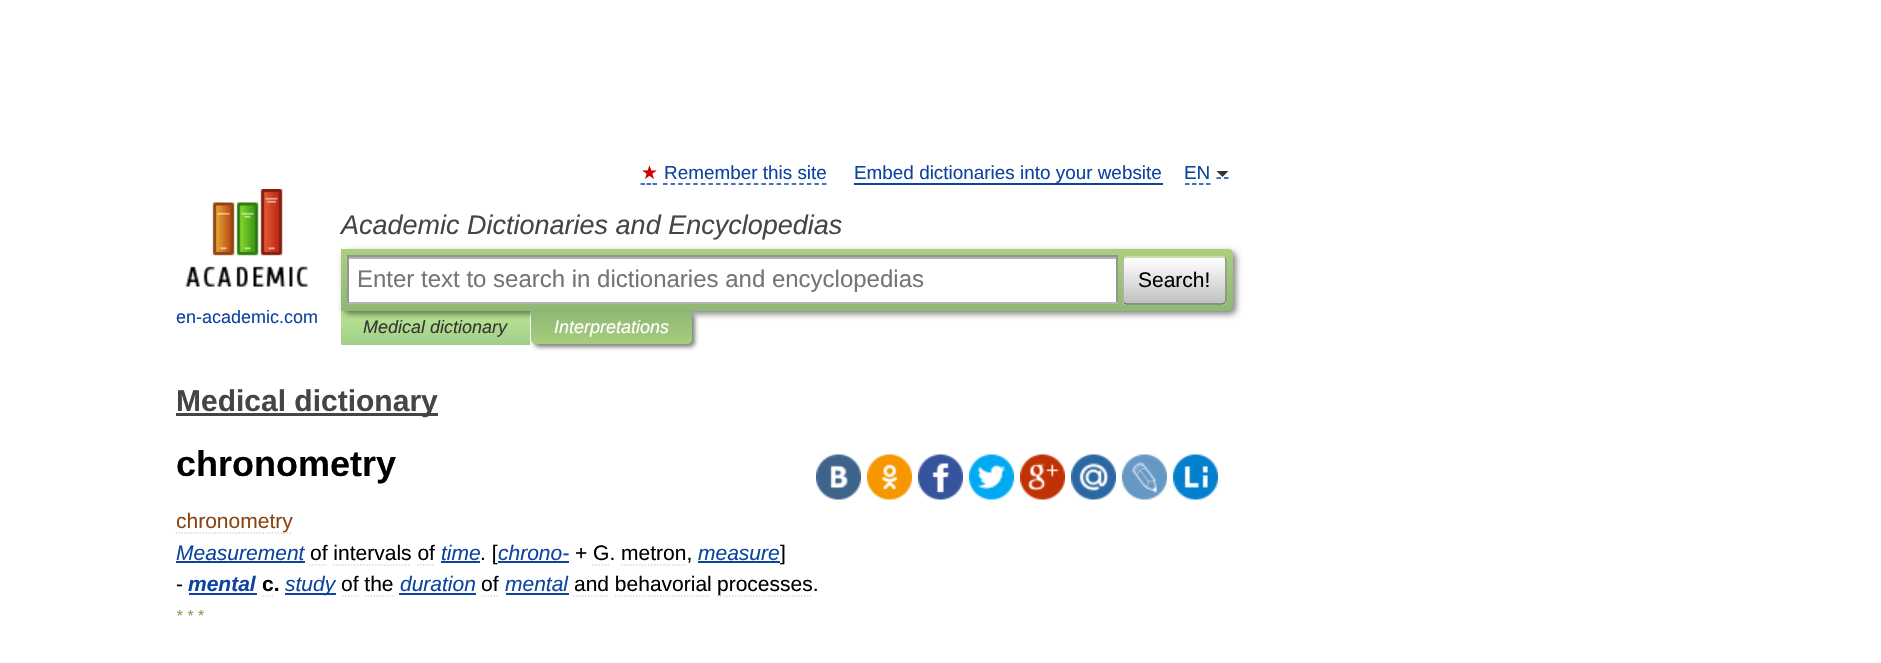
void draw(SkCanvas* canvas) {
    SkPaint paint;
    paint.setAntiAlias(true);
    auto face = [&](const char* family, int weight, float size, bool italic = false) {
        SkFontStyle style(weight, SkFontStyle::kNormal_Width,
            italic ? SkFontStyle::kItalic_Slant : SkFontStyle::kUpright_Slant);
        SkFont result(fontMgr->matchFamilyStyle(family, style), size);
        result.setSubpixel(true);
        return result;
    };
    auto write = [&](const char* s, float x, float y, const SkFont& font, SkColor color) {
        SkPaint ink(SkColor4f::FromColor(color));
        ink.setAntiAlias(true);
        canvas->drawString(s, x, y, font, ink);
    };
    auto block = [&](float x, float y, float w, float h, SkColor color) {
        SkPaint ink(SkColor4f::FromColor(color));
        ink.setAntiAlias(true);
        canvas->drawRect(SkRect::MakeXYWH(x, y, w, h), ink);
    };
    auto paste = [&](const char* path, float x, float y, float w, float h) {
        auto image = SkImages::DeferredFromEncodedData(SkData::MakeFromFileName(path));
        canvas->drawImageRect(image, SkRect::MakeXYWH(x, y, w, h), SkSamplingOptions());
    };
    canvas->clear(SK_ColorWHITE);
    auto kFont1 = face("DejaVu Sans", 400, 18.9f);
    write("★", 641, 179, kFont1, SkColorSetRGB(204, 0, 0));
    paint.setStyle(SkPaint::kStroke_Style);
    paint.setStrokeWidth(1.5f);
    paint.setColor(SkColorSetRGB(0, 68, 170));
    canvas->drawPath(SkPathBuilder().moveTo(640.5f, 184).lineTo(645, 184).moveTo(646.5f, 184).lineTo(651, 184).moveTo(652.5f, 184).lineTo(657, 184).detach(), paint);
    auto kFont2 = face("Liberation Sans", 400, 18.9f);
    write("Remember this site", 664, 179, kFont2, SkColorSetRGB(13, 68, 160));
    paint.setPathEffect(SkDashPathEffect::Make({{4.5f, 3.07f}}, 0));
    canvas->drawPath(SkPathBuilder().moveTo(663, 184).lineTo(826.5f, 184).detach(), paint);
    paint.setPathEffect(nullptr);
    write("Embed dictionaries into your website", 854, 179, kFont2, SkColorSetRGB(13, 68, 160));
    block(854, 183, 309, 2, SkColorSetRGB(13, 68, 160));
    paint.setPathEffect(SkDashPathEffect::Make({{4.5f, 2.5f}}, 0));
    canvas->drawPath(SkPathBuilder().moveTo(1185, 184).lineTo(1210.5f, 184).detach(), paint);
    paint.setPathEffect(nullptr);
    canvas->drawPath(SkPathBuilder().moveTo(1216.5f, 178).lineTo(1221, 178).moveTo(1224, 178).lineTo(1228.5f, 178).detach(), paint);
    write("EN", 1184, 179, kFont2, SkColorSetRGB(13, 68, 160));
    paint.setStyle(SkPaint::kFill_Style);
    paint.setColor(SkColorSetRGB(51, 51, 51));
    canvas->drawPath(SkPathBuilder().moveTo(1216.5f, 171).lineTo(1228.5f, 171).lineTo(1222.5f, 177).close().detach(), paint);
    auto kFont3 = face("Liberation Sans", 400, 27, true);
    write("Academic Dictionaries and Encyclopedias", 341, 234, kFont3, SkColorSetRGB(69, 69, 69));
    {
        const SkColor colors[] = {SkColorSetRGB(189, 230, 147), SkColorSetRGB(160, 206, 138)};
        const float stops[] = {0, 1};
        const SkPoint ends[] = {{435, 311}, {435, 345}};
        paint.setShader(SkGradientShader::MakeLinear(ends, colors, stops, 2, SkTileMode::kClamp));
        paint.setAlpha(255);
    }
    canvas->drawRect(SkRect::MakeXYWH(341, 311, 189, 34), paint);
    paint.setShader(nullptr);
    paint.setColor(SkColorSetARGB(128, 0, 0, 0));
    paint.setMaskFilter(SkMaskFilter::MakeBlur(kNormal_SkBlurStyle, 3));
    canvas->drawRoundRect(SkRect::MakeXYWH(344, 252, 892, 62), 5, 5, paint);
    paint.setMaskFilter(nullptr);
    {
        const SkColor colors[] = {SkColorSetRGB(171, 207, 126), SkColorSetRGB(142, 184, 116)};
        const float stops[] = {0, 1};
        const SkPoint ends[] = {{787, 249}, {787, 311}};
        paint.setShader(SkGradientShader::MakeLinear(ends, colors, stops, 2, SkTileMode::kClamp));
        paint.setAlpha(255);
    }
    canvas->drawPath(SkPathBuilder().moveTo(341, 249).lineTo(1228, 249).cubicTo(1231, 249, 1233, 251, 1233, 254).lineTo(1233, 306).cubicTo(1233, 309, 1231, 311, 1228, 311).lineTo(341, 311).close().detach(), paint);
    block(349, 259, 767, 43, SK_ColorWHITE);
    block(348, 257, 768, 2, SkColorSetRGB(179, 179, 179));
    block(347, 255, 771, 2, SkColorSetRGB(148, 148, 148));
    block(1116, 255, 2, 48, SkColorSetRGB(148, 148, 148));
    block(347, 302, 771, 2, SkColorSetRGB(180, 180, 180));
    block(347, 255, 2, 48, SkColorSetRGB(148, 148, 148));
    auto kFont4 = face("Liberation Sans", 400, 24);
    write("Enter text to search in dictionaries and encyclopedias", 357, 287, kFont4, SkColorSetRGB(117, 117, 117));
    canvas->save();
    canvas->clipPath(SkPathBuilder().moveTo(1127, 257).lineTo(1222, 257).cubicTo(1225, 257, 1227, 259, 1227, 262).lineTo(1227, 300).cubicTo(1227, 303, 1225, 305, 1222, 305).lineTo(1127, 305).cubicTo(1124, 305, 1122, 303, 1122, 300).lineTo(1122, 262).cubicTo(1122, 259, 1124, 257, 1127, 257).close().detach(), true);
    {
        const SkColor colors[] = {SK_ColorWHITE, SkColorSetRGB(193, 193, 193)};
        const float stops[] = {0, 1};
        const SkPoint ends[] = {{1175, 258}, {1175, 303}};
        paint.setShader(SkGradientShader::MakeLinear(ends, colors, stops, 2, SkTileMode::kClamp));
        paint.setAlpha(255);
    }
    canvas->drawRect(SkRect::MakeXYWH(1122, 258, 105, 45), paint);
    {
        const SkColor colors[] = {SK_ColorWHITE, SkColorSetRGB(193, 193, 193)};
        const float stops[] = {0, 1};
        const SkPoint ends[] = {{1175, 303}, {1175, 348}};
        paint.setShader(SkGradientShader::MakeLinear(ends, colors, stops, 2, SkTileMode::kClamp));
        paint.setAlpha(255);
    }
    canvas->drawRect(SkRect::MakeXYWH(1122, 303, 105, 2), paint);
    canvas->restore();
    paint.setStyle(SkPaint::kStroke_Style);
    paint.setShader(nullptr);
    paint.setColor(SkColorSetRGB(209, 228, 188));
    canvas->drawPath(SkPathBuilder().moveTo(1124, 258.5f).cubicTo(1124.5f, 257.5f, 1125.5f, 257, 1126.5f, 257).lineTo(1222.5f, 257).cubicTo(1223.5f, 257, 1224.5f, 257.5f, 1225, 258.5f).detach(), paint);
    paint.setColor(SkColorSetRGB(122, 142, 105));
    canvas->drawPath(SkPathBuilder().moveTo(1225, 258.5f).cubicTo(1226, 259, 1226, 260, 1226, 261).lineTo(1226, 300).cubicTo(1226, 301, 1226, 302, 1225, 302.5f).detach(), paint);
    paint.setColor(SkColorSetRGB(93, 114, 80));
    canvas->drawPath(SkPathBuilder().moveTo(1225, 302.5f).cubicTo(1224.5f, 303.5f, 1223.5f, 304, 1222.5f, 304).lineTo(1126.5f, 304).cubicTo(1125.5f, 304, 1124.5f, 303.5f, 1124, 302.5f).detach(), paint);
    paint.setColor(SkColorSetRGB(154, 174, 137));
    canvas->drawPath(SkPathBuilder().moveTo(1124, 302.5f).cubicTo(1123, 302, 1123, 301, 1123, 300).lineTo(1123, 261).cubicTo(1123, 260, 1123, 259, 1124, 258.5f).detach(), paint);
    auto kFont5 = face("Liberation Sans", 400, 21);
    write("Search!", 1138, 287, kFont5, SK_ColorBLACK);
    paste("pic1.png", 185, 189, 123, 98);
    auto kFont6 = face("Liberation Sans", 400, 18);
    write("en-academic.com", 176, 323, kFont6, SkColorSetRGB(13, 68, 160));
    auto kFont7 = face("Liberation Sans", 400, 18, true);
    write("Medical dictionary", 363, 333, kFont7, SkColorSetRGB(53, 53, 53));
    paint.setStyle(SkPaint::kFill_Style);
    paint.setColor(SkColorSetARGB(128, 0, 0, 0));
    paint.setMaskFilter(SkMaskFilter::MakeBlur(kNormal_SkBlurStyle, 2));
    canvas->drawRoundRect(SkRect::MakeXYWH(534, 314, 161, 33), 5, 5, paint);
    paint.setMaskFilter(nullptr);
    {
        const SkColor colors[] = {SkColorSetRGB(143, 184, 117), SkColorSetRGB(167, 204, 125)};
        const float stops[] = {0, 1};
        const SkPoint ends[] = {{611, 311}, {611, 344}};
        paint.setShader(SkGradientShader::MakeLinear(ends, colors, stops, 2, SkTileMode::kClamp));
        paint.setAlpha(255);
    }
    canvas->drawPath(SkPathBuilder().moveTo(531, 311).lineTo(692, 311).lineTo(692, 339).cubicTo(692, 342, 690, 344, 687, 344).lineTo(536, 344).cubicTo(533, 344, 531, 342, 531, 339).close().detach(), paint);
    write("Interpretations", 554, 333, kFont7, SK_ColorWHITE);
    block(176, 413, 262, 3, SkColorSetRGB(69, 69, 69));
    auto kFont8 = face("Liberation Sans", 700, 30);
    write("Medical dictionary", 176, 411, kFont8, SkColorSetRGB(69, 69, 69));
    auto kFont9 = face("Liberation Sans", 700, 36);
    write("chronometry", 176, 476, kFont9, SK_ColorBLACK);
    paste("pic2.png", 816, 454, 45, 46);
    paste("pic3.png", 867, 454, 45, 46);
    paste("pic4.png", 918, 454, 45, 46);
    paste("pic5.png", 969, 454, 45, 46);
    paste("pic6.png", 1020, 454, 45, 46);
    paste("pic7.png", 1071, 454, 45, 46);
    paste("pic8.png", 1122, 454, 45, 46);
    paste("pic9.png", 1173, 454, 45, 46);
    paint.setStyle(SkPaint::kStroke_Style);
    paint.setShader(nullptr);
    paint.setColor(SkColorSetRGB(217, 217, 217));
    paint.setPathEffect(SkDashPathEffect::Make({{1.5f, 1.5f}}, 0));
    canvas->drawPath(SkPathBuilder().moveTo(175.5f, 533).lineTo(292.5f, 533).detach(), paint);
    paint.setPathEffect(nullptr);
    write("chronometry", 176, 528, kFont5, SkColorSetRGB(139, 69, 19));
    auto kFont10 = face("Liberation Sans", 400, 21, true);
    write("Measurement", 176, 560, kFont10, SkColorSetRGB(13, 68, 160));
    block(176, 561, 129, 2, SkColorSetRGB(13, 68, 160));
    write("of intervals of", 310, 560, kFont5, SK_ColorBLACK);
    paint.setPathEffect(SkDashPathEffect::Make({{1.5f, 1.5f}}, 0));
    canvas->drawPath(SkPathBuilder().moveTo(309, 565).lineTo(327, 565).detach(), paint);
    paint.setPathEffect(nullptr);
    write("time", 441, 560, kFont10, SkColorSetRGB(13, 68, 160));
    block(441, 561, 39, 2, SkColorSetRGB(13, 68, 160));
    write(". [", 480, 560, kFont5, SK_ColorBLACK);
    write("chrono-", 498, 560, kFont10, SkColorSetRGB(13, 68, 160));
    block(498, 561, 71, 2, SkColorSetRGB(13, 68, 160));
    write("+ G. metron,", 575, 560, kFont5, SK_ColorBLACK);
    write("measure", 698, 560, kFont10, SkColorSetRGB(13, 68, 160));
    block(698, 561, 82, 2, SkColorSetRGB(13, 68, 160));
    write("]", 780, 560, kFont5, SK_ColorBLACK);
    paint.setPathEffect(SkDashPathEffect::Make({{1.5f, 1.5f}}, 0));
    canvas->drawPath(SkPathBuilder().moveTo(333, 565).lineTo(411, 565).detach(), paint);
    paint.setPathEffect(nullptr);
    paint.setPathEffect(SkDashPathEffect::Make({{1.5f, 1.5f}}, 0));
    canvas->drawPath(SkPathBuilder().moveTo(417, 565).lineTo(435, 565).detach(), paint);
    paint.setPathEffect(nullptr);
    paint.setPathEffect(SkDashPathEffect::Make({{1.5f, 1.5f}}, 0));
    canvas->drawPath(SkPathBuilder().moveTo(592.5f, 565).lineTo(609, 565).detach(), paint);
    paint.setPathEffect(nullptr);
    paint.setPathEffect(SkDashPathEffect::Make({{1.5f, 1.5f}}, 0));
    canvas->drawPath(SkPathBuilder().moveTo(621, 565).lineTo(687, 565).detach(), paint);
    paint.setPathEffect(nullptr);
    write("-", 176, 591, kFont5, SK_ColorBLACK);
    auto kFont11 = face("Liberation Sans", 700, 21, true);
    write("mental", 188, 591, kFont11, SkColorSetRGB(13, 68, 160));
    block(189, 593, 68, 2, SkColorSetRGB(13, 68, 160));
    auto kFont12 = face("Liberation Sans", 700, 21);
    write("c.", 262, 591, kFont12, SK_ColorBLACK);
    canvas->drawPath(SkPathBuilder().moveTo(262.5f, 596).lineTo(264, 596).moveTo(265.5f, 596).lineTo(267, 596).moveTo(268.5f, 596).lineTo(270, 596).moveTo(271.5f, 596).lineTo(273, 596).detach(), paint);
    block(285, 593, 51, 2, SkColorSetRGB(13, 68, 160));
    write("study", 285, 591, kFont10, SkColorSetRGB(13, 68, 160));
    write("of the", 341, 591, kFont5, SK_ColorBLACK);
    paint.setPathEffect(SkDashPathEffect::Make({{1.5f, 1.5f}}, 0));
    canvas->drawPath(SkPathBuilder().moveTo(342, 596).lineTo(358.5f, 596).detach(), paint);
    paint.setPathEffect(nullptr);
    write("duration", 400, 591, kFont10, SkColorSetRGB(13, 68, 160));
    block(399, 593, 77, 2, SkColorSetRGB(13, 68, 160));
    write("of", 481, 591, kFont5, SK_ColorBLACK);
    paint.setPathEffect(SkDashPathEffect::Make({{1.5f, 1.5f}}, 0));
    canvas->drawPath(SkPathBuilder().moveTo(481.5f, 596).lineTo(499.5f, 596).detach(), paint);
    paint.setPathEffect(nullptr);
    write("mental", 505, 591, kFont10, SkColorSetRGB(13, 68, 160));
    block(506, 593, 63, 2, SkColorSetRGB(13, 68, 160));
    write("and behavorial", 574, 591, kFont5, SK_ColorBLACK);
    paint.setPathEffect(SkDashPathEffect::Make({{1.5f, 1.5f}}, 0));
    canvas->drawPath(SkPathBuilder().moveTo(573, 596).lineTo(609, 596).detach(), paint);
    paint.setPathEffect(nullptr);
    paint.setPathEffect(SkDashPathEffect::Make({{1.5f, 1.5f}}, 0));
    canvas->drawPath(SkPathBuilder().moveTo(717, 596).lineTo(813, 596).detach(), paint);
    paint.setPathEffect(nullptr);
    write("processes.", 717, 591, kFont5, SK_ColorBLACK);
    paint.setPathEffect(SkDashPathEffect::Make({{1.5f, 1.5f}}, 0));
    canvas->drawPath(SkPathBuilder().moveTo(364.5f, 596).lineTo(394.5f, 596).detach(), paint);
    paint.setPathEffect(nullptr);
    paint.setPathEffect(SkDashPathEffect::Make({{1.5f, 1.5f}}, 0));
    canvas->drawPath(SkPathBuilder().moveTo(615, 596).lineTo(711, 596).detach(), paint);
    paint.setPathEffect(nullptr);
    auto kFont13 = face("Liberation Sans", 400, 16, true);
    write("* * *", 176, 621, kFont13, SkColorSetRGB(147, 151, 86));
}
